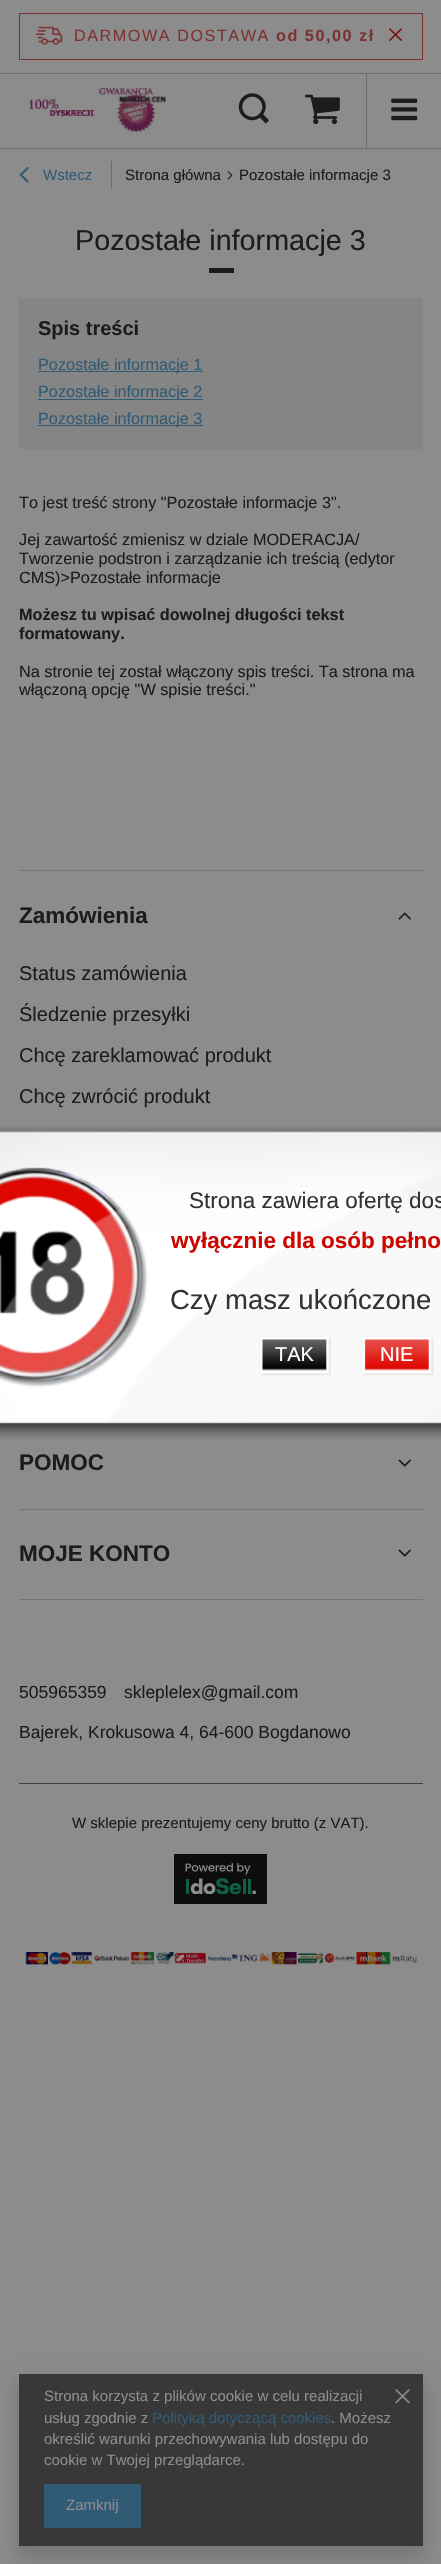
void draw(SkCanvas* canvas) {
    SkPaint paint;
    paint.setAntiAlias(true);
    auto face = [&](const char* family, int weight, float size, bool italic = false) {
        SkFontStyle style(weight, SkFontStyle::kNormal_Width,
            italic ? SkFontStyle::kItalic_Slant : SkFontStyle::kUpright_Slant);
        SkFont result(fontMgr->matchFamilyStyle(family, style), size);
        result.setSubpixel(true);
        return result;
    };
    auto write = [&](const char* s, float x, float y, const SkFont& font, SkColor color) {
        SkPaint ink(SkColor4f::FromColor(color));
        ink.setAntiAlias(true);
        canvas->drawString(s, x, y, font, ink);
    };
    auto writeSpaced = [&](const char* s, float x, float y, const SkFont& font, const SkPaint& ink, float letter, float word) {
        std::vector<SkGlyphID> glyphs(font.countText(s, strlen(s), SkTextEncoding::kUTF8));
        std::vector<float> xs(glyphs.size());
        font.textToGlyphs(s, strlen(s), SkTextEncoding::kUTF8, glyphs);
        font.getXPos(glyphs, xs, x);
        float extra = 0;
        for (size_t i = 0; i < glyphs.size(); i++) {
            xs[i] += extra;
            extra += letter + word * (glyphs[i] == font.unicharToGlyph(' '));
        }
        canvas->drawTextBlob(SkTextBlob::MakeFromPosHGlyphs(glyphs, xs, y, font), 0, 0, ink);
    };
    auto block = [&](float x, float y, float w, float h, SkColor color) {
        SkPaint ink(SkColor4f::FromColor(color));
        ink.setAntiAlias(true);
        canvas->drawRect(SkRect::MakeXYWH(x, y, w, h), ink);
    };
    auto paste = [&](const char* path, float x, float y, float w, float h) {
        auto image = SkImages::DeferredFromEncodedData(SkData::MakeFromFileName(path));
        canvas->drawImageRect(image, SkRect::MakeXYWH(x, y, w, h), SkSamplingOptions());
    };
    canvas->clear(SkColorSetRGB(140, 140, 140));
    block(0, 148, 441, 1, SkColorSetRGB(108, 109, 110));
    paint.setStyle(SkPaint::kStroke_Style);
    paint.setStrokeWidth(1);
    paint.setColor(SkColorSetRGB(125, 51, 51));
    canvas->drawRect(SkRect::MakeXYWH(19.5f, 13.5f, 403, 46), paint);
    paste("pic1.png", 36, 26, 27, 19);
    auto kFont1 = face("Liberation Sans", 400, 16.25f);
    paint.setStyle(SkPaint::kFill_Style);
    writeSpaced("DARMOWA DOSTAWA", 74, 41, kFont1, paint, 1.5f, 0);
    auto kFont2 = face("Liberation Sans", 700, 16.25f);
    writeSpaced("od 50,00 zł", 276, 41, kFont2, paint, 1.5f, 0);
    paste("pic2.png", 388, 28, 15, 14);
    block(366, 73, 1, 75, SkColorSetRGB(108, 109, 110));
    block(0, 73, 441, 1, SkColorSetRGB(108, 109, 110));
    paste("pic3.png", 28, 85, 138, 48);
    paste("pic4.png", 238, 93, 31, 31);
    paste("pic5.png", 305, 94, 35, 31);
    paste("pic6.png", 391, 98, 27, 23);
    paste("pic7.png", 19, 166, 10, 17);
    auto kFont3 = face("Liberation Sans", 400, 15);
    write("Wstecz", 43, 180, kFont3, SkColorSetRGB(49, 90, 117));
    block(111, 161, 1, 28, SkColorSetRGB(108, 109, 110));
    write("Strona główna", 125, 180, kFont3, SkColorSetRGB(28, 28, 28));
    paste("pic8.png", 227, 171, 6, 9);
    write("Pozostałe informacje 3", 239, 180, kFont3, SkColorSetRGB(28, 28, 28));
    auto kFont4 = face("Liberation Sans", 400, 28.75f);
    write("Pozostałe informacje 3", 75, 250, kFont4, SkColorSetRGB(28, 28, 28));
    block(209, 268, 25, 5, SkColorSetRGB(28, 28, 28));
    block(19, 298, 404, 151, SkColorSetRGB(133, 133, 133));
    auto kFont5 = face("Liberation Sans", 700, 20);
    write("Spis treści", 38, 335, kFont5, SkColorSetRGB(28, 28, 28));
    block(38, 371, 165, 1, SkColorSetRGB(49, 90, 117));
    write("Pozostałe informacje 1", 38, 370, kFont1, SkColorSetRGB(49, 90, 117));
    block(38, 399, 165, 1, SkColorSetRGB(49, 90, 117));
    write("Pozostałe informacje 2", 38, 397, kFont1, SkColorSetRGB(49, 90, 117));
    block(38, 425, 165, 1, SkColorSetRGB(49, 90, 117));
    write("Pozostałe informacje 3", 38, 424, kFont1, SkColorSetRGB(49, 90, 117));
    write("To jest treść strony \"Pozostałe informacje 3\".", 19, 508, kFont1, SkColorSetRGB(28, 28, 28));
    write("Jej zawartość zmienisz w dziale MODERACJA/", 19, 545, kFont1, SkColorSetRGB(28, 28, 28));
    write("Tworzenie podstron i zarządzanie ich treścią (edytor", 19, 564, kFont1, SkColorSetRGB(28, 28, 28));
    write("CMS)>Pozostałe informacje", 19, 583, kFont1, SkColorSetRGB(28, 28, 28));
    write("Możesz tu wpisać dowolnej długości tekst", 19, 620, kFont2, SkColorSetRGB(28, 28, 28));
    write("formatowany.", 19, 639, kFont2, SkColorSetRGB(28, 28, 28));
    write("Na stronie tej został włączony spis treści. Ta strona ma", 19, 677, kFont1, SkColorSetRGB(28, 28, 28));
    write("włączoną opcję \"W spisie treści.\"", 19, 695, kFont1, SkColorSetRGB(28, 28, 28));
    block(19, 870, 404, 1, SkColorSetRGB(115, 117, 120));
    auto kFont6 = face("Liberation Sans", 700, 22.5f);
    write("Zamówienia", 19, 923, kFont6, SkColorSetRGB(28, 28, 28));
    paste("pic9.png", 398, 912, 13, 8);
    auto kFont7 = face("Liberation Sans", 400, 20);
    write("Status zamówienia", 19, 980, kFont7, SkColorSetRGB(28, 28, 28));
    write("Śledzenie przesyłki", 19, 1021, kFont7, SkColorSetRGB(28, 28, 28));
    write("Chcę zareklamować produkt", 19, 1062, kFont7, SkColorSetRGB(28, 28, 28));
    write("Chcę zwrócić produkt", 19, 1103, kFont7, SkColorSetRGB(28, 28, 28));
    block(19, 1509, 404, 1, SkColorSetRGB(115, 117, 120));
    write("POMOC", 19, 1470, kFont6, SkColorSetRGB(28, 28, 28));
    paste("pic10.png", 398, 1459, 13, 8);
    block(19, 1599, 404, 1, SkColorSetRGB(115, 117, 120));
    write("MOJE KONTO", 19, 1561, kFont6, SkColorSetRGB(28, 28, 28));
    paste("pic10.png", 398, 1549, 13, 8);
    block(19, 1783, 404, 1, SkColorSetRGB(59, 65, 73));
    auto kFont8 = face("Liberation Sans", 400, 17.5f);
    write("505965359", 19, 1698, kFont8, SkColorSetRGB(28, 28, 28));
    write("skleplelex@gmail.com", 124, 1698, kFont8, SkColorSetRGB(28, 28, 28));
    write("Bajerek, Krokusowa 4, 64-600 Bogdanowo", 19, 1738, kFont8, SkColorSetRGB(28, 28, 28));
    write("W sklepie prezentujemy ceny brutto (z VAT).", 72, 1828, kFont3, SkColorSetRGB(28, 28, 28));
    paste("pic11.png", 174, 1854, 93, 50);
    paste("pic12.png", 25, 1952, 392, 13);
    paste("pic13.png", 0, 1125, 441, 315);
    auto kFont9 = face("Liberation Sans", 400, 22.5f);
    write("Strona zawiera ofertę dos", 189, 1208, kFont9, SkColorSetRGB(51, 51, 51));
    write("wyłącznie dla osób pełno", 171, 1248, kFont6, SkColorSetRGB(206, 6, 0));
    auto kFont10 = face("Liberation Sans", 400, 27.5f);
    write("Czy masz ukończone", 170, 1309, kFont10, SkColorSetRGB(51, 51, 51));
    paste("pic14.png", 259, 1336, 72, 40);
    write("TAK", 275, 1361, kFont7, SK_ColorWHITE);
    paste("pic15.png", 361, 1336, 73, 40);
    write("NIE", 380, 1361, kFont7, SK_ColorWHITE);
    canvas->save();
    canvas->clipPath(SkPathBuilder(SkPathFillType::kEvenOdd).moveTo(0, 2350).lineTo(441, 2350).lineTo(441, 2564).lineTo(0, 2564).close().moveTo(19, 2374).lineTo(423, 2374).lineTo(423, 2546).lineTo(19, 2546).close().detach(), true);
    paint.setColor(SkColorSetARGB(38, 0, 0, 0));
    paint.setMaskFilter(SkMaskFilter::MakeBlur(kNormal_SkBlurStyle, 9.5f));
    canvas->drawRect(SkRect::MakeXYWH(15, 2380, 411, 180), paint);
    paint.setMaskFilter(nullptr);
    canvas->restore();
    block(19, 2374, 404, 172, SkColorSetARGB(153, 0, 0, 0));
    write("Strona korzysta z plików cookie w celu realizacji", 44, 2401, kFont3, SkColorSetRGB(140, 140, 140));
    write("usług zgodnie z", 44, 2423, kFont3, SkColorSetRGB(140, 140, 140));
    write("Polityką dotyczącą cookies", 152, 2423, kFont3, SkColorSetRGB(49, 90, 117));
    write(". Możesz", 331, 2423, kFont3, SkColorSetRGB(140, 140, 140));
    write("określić warunki przechowywania lub dostępu do", 44, 2444, kFont3, SkColorSetRGB(140, 140, 140));
    write("cookie w Twojej przeglądarce.", 44, 2465, kFont3, SkColorSetRGB(140, 140, 140));
    block(44, 2484, 97, 44, SkColorSetRGB(49, 90, 117));
    write("Zamknij", 66, 2510, kFont3, SkColorSetRGB(140, 140, 140));
    paste("pic16.png", 395, 2389, 15, 15);
}
